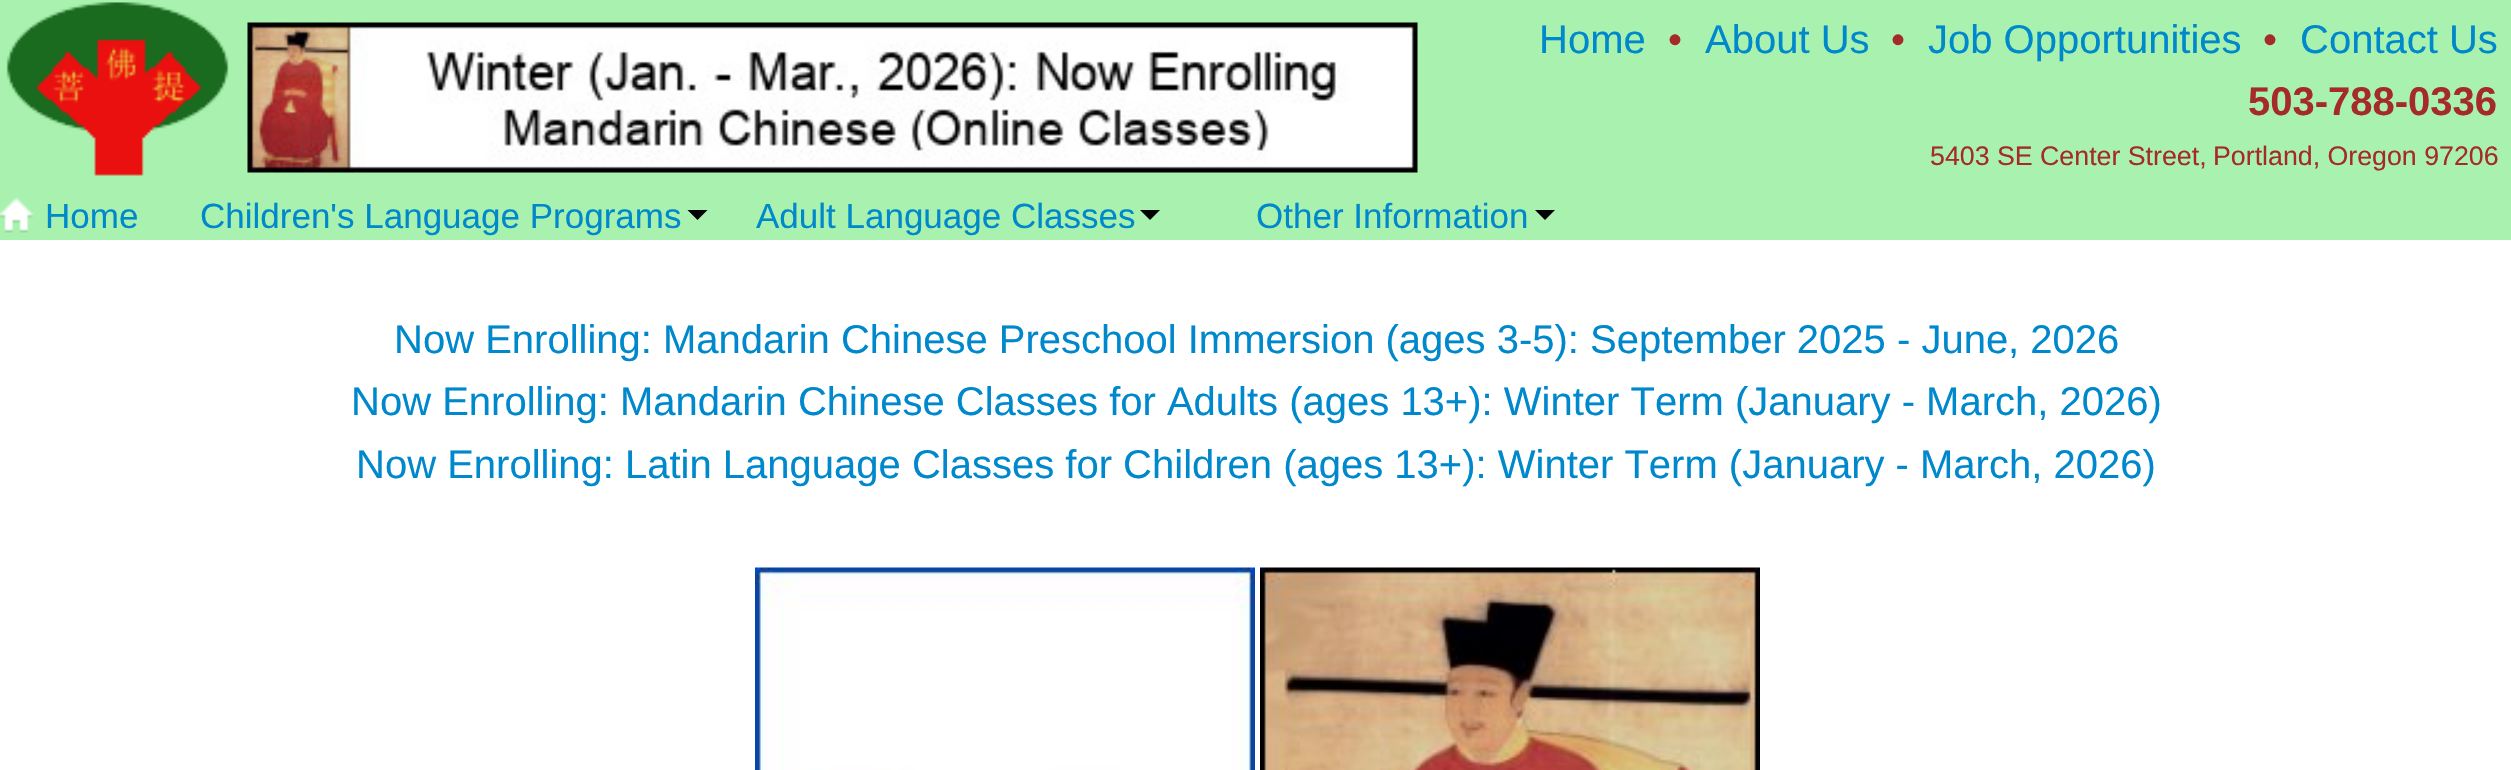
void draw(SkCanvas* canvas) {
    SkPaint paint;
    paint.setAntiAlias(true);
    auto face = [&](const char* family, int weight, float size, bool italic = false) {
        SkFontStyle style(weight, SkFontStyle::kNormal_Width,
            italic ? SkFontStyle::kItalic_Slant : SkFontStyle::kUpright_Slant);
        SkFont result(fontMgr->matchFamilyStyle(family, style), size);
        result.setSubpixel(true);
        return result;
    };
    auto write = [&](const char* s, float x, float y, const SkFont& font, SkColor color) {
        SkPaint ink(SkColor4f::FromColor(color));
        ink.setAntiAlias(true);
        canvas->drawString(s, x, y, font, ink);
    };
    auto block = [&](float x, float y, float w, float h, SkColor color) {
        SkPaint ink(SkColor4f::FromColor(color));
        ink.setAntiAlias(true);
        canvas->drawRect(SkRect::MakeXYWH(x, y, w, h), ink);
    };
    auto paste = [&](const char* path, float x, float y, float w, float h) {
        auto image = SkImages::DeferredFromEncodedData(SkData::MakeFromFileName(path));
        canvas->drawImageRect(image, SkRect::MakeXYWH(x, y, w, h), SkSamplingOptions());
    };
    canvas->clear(SK_ColorWHITE);
    block(0, 0, 2511, 240, SkColorSetRGB(169, 241, 174));
    paste("pic1.png", 2, 2, 236, 188);
    paste("pic2.png", 247, 22, 1171, 151);
    auto kFont1 = face("Liberation Sans", 400, 40);
    write("Home", 1539, 53, kFont1, SkColorSetRGB(0, 136, 204));
    write("•", 1668, 53, kFont1, SkColorSetRGB(165, 42, 42));
    write("About Us", 1705, 53, kFont1, SkColorSetRGB(0, 136, 204));
    write("•", 1891, 53, kFont1, SkColorSetRGB(165, 42, 42));
    write("Job Opportunities", 1928, 53, kFont1, SkColorSetRGB(0, 136, 204));
    write("•", 2263, 53, kFont1, SkColorSetRGB(165, 42, 42));
    write("Contact Us", 2300, 53, kFont1, SkColorSetRGB(0, 136, 204));
    auto kFont2 = face("Liberation Sans", 700, 40);
    write("503-788-0336", 2248, 115, kFont2, SkColorSetRGB(165, 42, 42));
    auto kFont3 = face("Liberation Sans", 400, 26.75f);
    write("5403 SE Center Street,", 1930, 165, kFont3, SkColorSetRGB(165, 42, 42));
    write("Portland, Oregon 97206", 2213, 165, kFont3, SkColorSetRGB(165, 42, 42));
    paste("pic3.png", 0, 197, 34, 36);
    auto kFont4 = face("Liberation Sans", 400, 35);
    write("Home", 45, 228, kFont4, SkColorSetRGB(0, 136, 204));
    write("Children's Language Programs", 200, 228, kFont4, SkColorSetRGB(0, 136, 204));
    paint.setColor(SK_ColorBLACK);
    canvas->drawPath(SkPathBuilder().moveTo(687.5f, 210).lineTo(707.5f, 210).lineTo(697.5f, 220).close().detach(), paint);
    write("Adult Language Classes", 756, 228, kFont4, SkColorSetRGB(0, 136, 204));
    canvas->drawPath(SkPathBuilder().moveTo(1140, 210).lineTo(1160, 210).lineTo(1150, 220).close().detach(), paint);
    write("Other Information", 1256, 228, kFont4, SkColorSetRGB(0, 136, 204));
    canvas->drawPath(SkPathBuilder().moveTo(1535, 210).lineTo(1555, 210).lineTo(1545, 220).close().detach(), paint);
    write("Now Enrolling: Mandarin Chinese Preschool Immersion (ages 3-5): September 2025 - June, 2026", 394, 353, kFont1, SkColorSetRGB(0, 136, 204));
    write("Now Enrolling: Mandarin Chinese Classes for Adults (ages 13+): Winter Term (January - March, 2026)", 351, 415, kFont1, SkColorSetRGB(0, 136, 204));
    write("Now Enrolling: Latin Language Classes for Children (ages 13+): Winter Term (January - March, 2026)", 356, 478, kFont1, SkColorSetRGB(0, 136, 204));
    paste("pic4.png", 755, 567, 500, 203);
    paste("pic5.png", 1260, 567, 500, 203);
}
